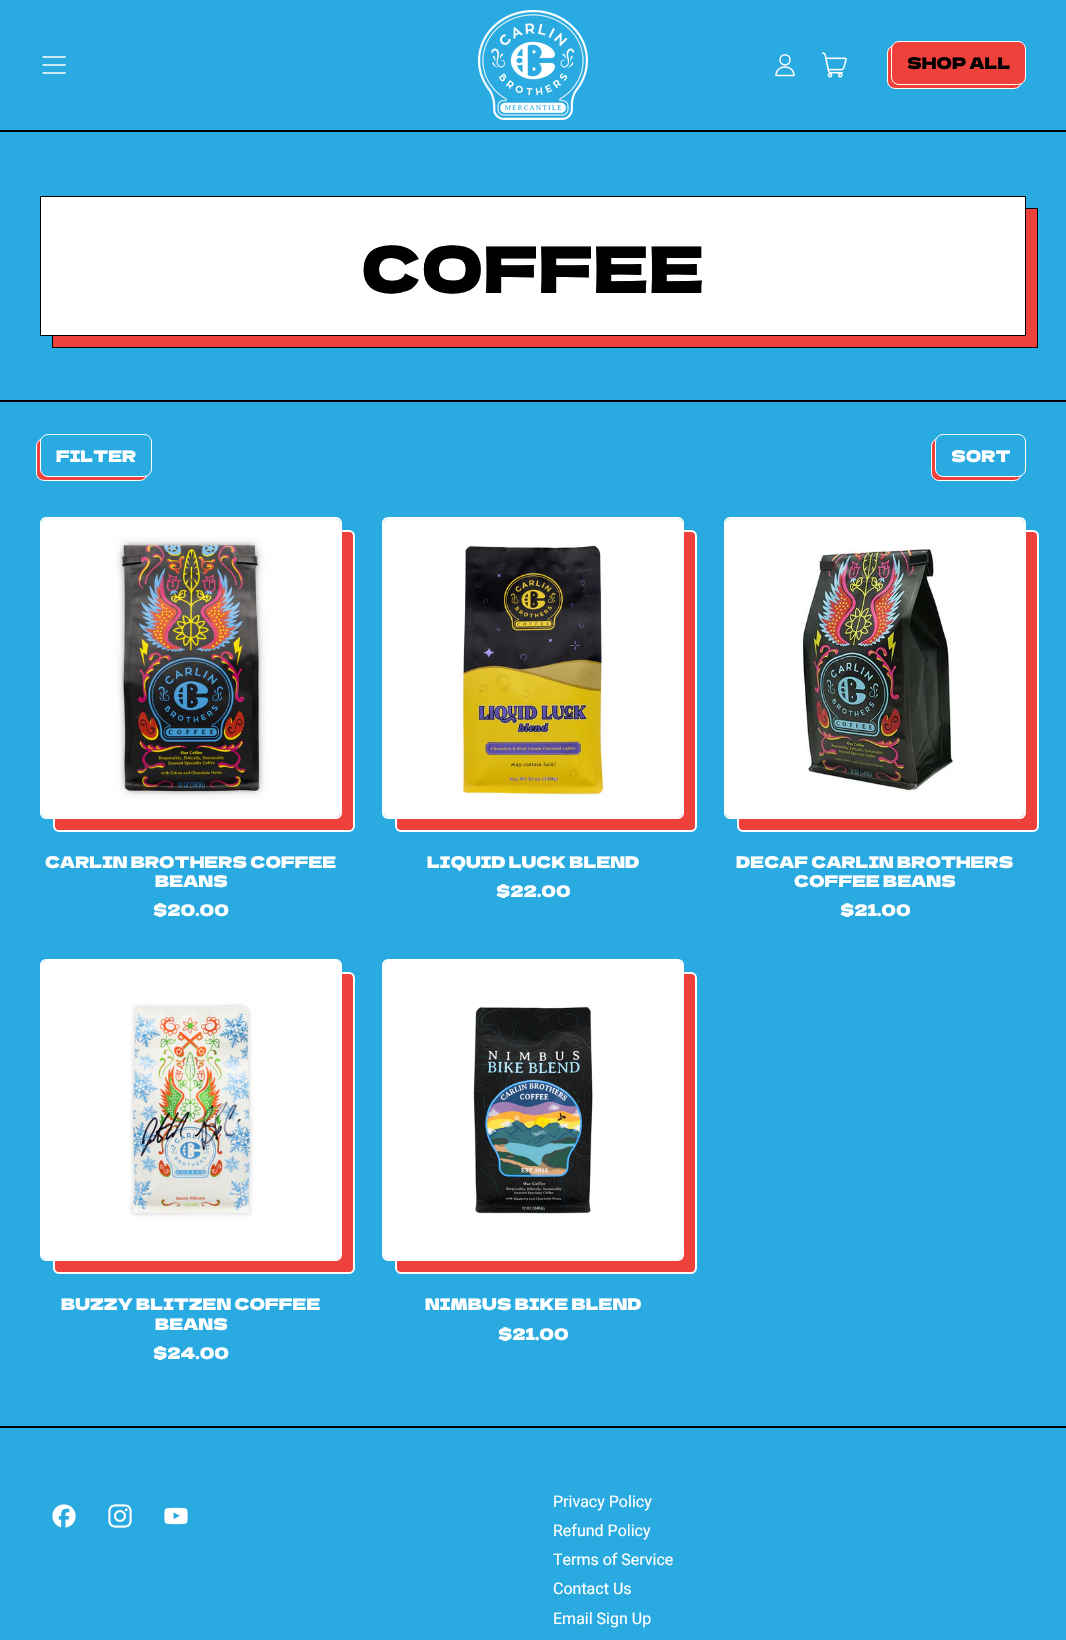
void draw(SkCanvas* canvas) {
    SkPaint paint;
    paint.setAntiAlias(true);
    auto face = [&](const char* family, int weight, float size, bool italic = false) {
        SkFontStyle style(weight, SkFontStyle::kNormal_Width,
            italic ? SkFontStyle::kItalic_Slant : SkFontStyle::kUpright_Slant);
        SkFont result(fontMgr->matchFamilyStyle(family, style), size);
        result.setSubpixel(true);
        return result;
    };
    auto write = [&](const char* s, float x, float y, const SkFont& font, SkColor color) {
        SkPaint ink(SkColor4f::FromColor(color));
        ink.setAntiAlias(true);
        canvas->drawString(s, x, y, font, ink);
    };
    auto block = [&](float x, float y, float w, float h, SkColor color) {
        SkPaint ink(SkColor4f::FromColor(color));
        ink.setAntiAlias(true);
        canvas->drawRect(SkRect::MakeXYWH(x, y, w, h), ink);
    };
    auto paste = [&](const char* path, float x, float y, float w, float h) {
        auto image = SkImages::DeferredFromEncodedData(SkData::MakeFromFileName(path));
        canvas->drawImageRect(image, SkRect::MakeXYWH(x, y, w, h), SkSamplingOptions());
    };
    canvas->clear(SkColorSetRGB(41, 170, 225));
    block(0, 130, 1066, 2, SK_ColorBLACK);
    paint.setStyle(SkPaint::kStroke_Style);
    paint.setStrokeWidth(1.5f);
    paint.setStrokeCap(SkPaint::kRound_Cap);
    paint.setStrokeJoin(SkPaint::kRound_Join);
    paint.setColor(SK_ColorWHITE);
    canvas->drawPath(SkPathBuilder().moveTo(65, 73).lineTo(43, 73).moveTo(65, 65).lineTo(43, 65).moveTo(65, 57).lineTo(43, 57).detach(), paint);
    paste("pic1.png", 478, 10, 110, 110);
    canvas->drawPath(SkPathBuilder().moveTo(780, 60).cubicTo(780, 66.5f, 790, 66.5f, 790, 60).cubicTo(790, 53, 780, 53, 780, 60).close().moveTo(776, 75.5f).cubicTo(776, 64, 794, 64, 794, 75.5f).close().detach(), paint);
    paste("pic2.png", 822, 52, 25, 26);
    paint.setStyle(SkPaint::kFill_Style);
    paint.setColor(SkColorSetRGB(239, 65, 60));
    canvas->drawRoundRect(SkRect::MakeXYWH(887.5f, 45.5f, 134, 43), 7.5f, 7.5f, paint);
    paint.setStyle(SkPaint::kStroke_Style);
    paint.setStrokeWidth(1);
    paint.setStrokeCap(SkPaint::kButt_Cap);
    paint.setStrokeJoin(SkPaint::kMiter_Join);
    paint.setColor(SK_ColorWHITE);
    canvas->drawRoundRect(SkRect::MakeXYWH(887.5f, 45.5f, 134, 43), 7.5f, 7.5f, paint);
    paint.setStyle(SkPaint::kFill_Style);
    paint.setColor(SkColorSetRGB(239, 65, 60));
    canvas->drawRoundRect(SkRect::MakeXYWH(891.5f, 41.5f, 134, 43), 7.5f, 7.5f, paint);
    paint.setStyle(SkPaint::kStroke_Style);
    paint.setColor(SK_ColorWHITE);
    canvas->drawRoundRect(SkRect::MakeXYWH(891.5f, 41.5f, 134, 43), 7.5f, 7.5f, paint);
    auto kFont1 = face("Dela Gothic One", 400, 16);
    write("SHOP ALL", 907, 69, kFont1, SK_ColorBLACK);
    paint.setStyle(SkPaint::kFill_Style);
    paint.setColor(SkColorSetRGB(239, 65, 60));
    canvas->drawRect(SkRect::MakeXYWH(52.5f, 208.5f, 985, 139), paint);
    paint.setStyle(SkPaint::kStroke_Style);
    paint.setColor(SK_ColorBLACK);
    canvas->drawRect(SkRect::MakeXYWH(52.5f, 208.5f, 985, 139), paint);
    paint.setStyle(SkPaint::kFill_Style);
    paint.setColor(SK_ColorWHITE);
    canvas->drawRect(SkRect::MakeXYWH(40.5f, 196.5f, 985, 139), paint);
    paint.setStyle(SkPaint::kStroke_Style);
    paint.setColor(SK_ColorBLACK);
    canvas->drawRect(SkRect::MakeXYWH(40.5f, 196.5f, 985, 139), paint);
    auto kFont2 = face("Dela Gothic One", 400, 64);
    write("COFFEE", 361, 293, kFont2, SK_ColorBLACK);
    block(0, 400, 1066, 2, SK_ColorBLACK);
    paint.setStyle(SkPaint::kFill_Style);
    paint.setColor(SkColorSetRGB(239, 65, 60));
    canvas->drawRoundRect(SkRect::MakeXYWH(36.5f, 438.5f, 111, 42), 7.5f, 7.5f, paint);
    paint.setStyle(SkPaint::kStroke_Style);
    paint.setColor(SK_ColorWHITE);
    canvas->drawRoundRect(SkRect::MakeXYWH(36.5f, 438.5f, 111, 42), 7.5f, 7.5f, paint);
    paint.setStyle(SkPaint::kFill_Style);
    paint.setColor(SkColorSetRGB(41, 170, 225));
    canvas->drawRoundRect(SkRect::MakeXYWH(40.5f, 434.5f, 111, 42), 7.5f, 7.5f, paint);
    paint.setStyle(SkPaint::kStroke_Style);
    paint.setColor(SK_ColorWHITE);
    canvas->drawRoundRect(SkRect::MakeXYWH(40.5f, 434.5f, 111, 42), 7.5f, 7.5f, paint);
    write("FILTER", 56, 462, kFont1, SK_ColorWHITE);
    paint.setStyle(SkPaint::kFill_Style);
    paint.setColor(SkColorSetRGB(239, 65, 60));
    canvas->drawRoundRect(SkRect::MakeXYWH(931.5f, 438.5f, 90, 42), 7.5f, 7.5f, paint);
    paint.setStyle(SkPaint::kStroke_Style);
    paint.setColor(SK_ColorWHITE);
    canvas->drawRoundRect(SkRect::MakeXYWH(931.5f, 438.5f, 90, 42), 7.5f, 7.5f, paint);
    paint.setStyle(SkPaint::kFill_Style);
    paint.setColor(SkColorSetRGB(41, 170, 225));
    canvas->drawRoundRect(SkRect::MakeXYWH(935.5f, 434.5f, 90, 42), 7.5f, 7.5f, paint);
    paint.setStyle(SkPaint::kStroke_Style);
    paint.setColor(SK_ColorWHITE);
    canvas->drawRoundRect(SkRect::MakeXYWH(935.5f, 434.5f, 90, 42), 7.5f, 7.5f, paint);
    write("SORT", 951, 462, kFont1, SK_ColorWHITE);
    paint.setStyle(SkPaint::kFill_Style);
    paint.setColor(SkColorSetRGB(239, 65, 60));
    canvas->drawRoundRect(SkRect::MakeXYWH(54, 531, 300, 300), 5, 5, paint);
    paint.setStyle(SkPaint::kStroke_Style);
    paint.setStrokeWidth(2);
    paint.setColor(SK_ColorWHITE);
    canvas->drawRoundRect(SkRect::MakeXYWH(54, 531, 300, 300), 5, 5, paint);
    canvas->drawRoundRect(SkRect::MakeXYWH(41, 518, 300, 300), 5, 5, paint);
    paste("pic3.png", 42, 519, 298, 298);
    write("CARLIN BROTHERS COFFEE", 45, 868, kFont1, SK_ColorWHITE);
    write("BEANS", 155, 887, kFont1, SK_ColorWHITE);
    write("$20.00", 153, 916, kFont1, SK_ColorWHITE);
    paint.setStyle(SkPaint::kFill_Style);
    paint.setColor(SkColorSetRGB(239, 65, 60));
    canvas->drawRoundRect(SkRect::MakeXYWH(396, 531, 300, 300), 5, 5, paint);
    paint.setStyle(SkPaint::kStroke_Style);
    paint.setColor(SK_ColorWHITE);
    canvas->drawRoundRect(SkRect::MakeXYWH(396, 531, 300, 300), 5, 5, paint);
    canvas->drawRoundRect(SkRect::MakeXYWH(383, 518, 300, 300), 5, 5, paint);
    paste("pic4.png", 384, 519, 298, 298);
    write("LIQUID LUCK BLEND", 427, 868, kFont1, SK_ColorWHITE);
    write("$22.00", 496, 897, kFont1, SK_ColorWHITE);
    paint.setStyle(SkPaint::kFill_Style);
    paint.setColor(SkColorSetRGB(239, 65, 60));
    canvas->drawRoundRect(SkRect::MakeXYWH(738, 531, 300, 300), 5, 5, paint);
    paint.setStyle(SkPaint::kStroke_Style);
    paint.setColor(SK_ColorWHITE);
    canvas->drawRoundRect(SkRect::MakeXYWH(738, 531, 300, 300), 5, 5, paint);
    canvas->drawRoundRect(SkRect::MakeXYWH(725, 518, 300, 300), 5, 5, paint);
    paste("pic5.png", 726, 519, 298, 298);
    write("DECAF CARLIN BROTHERS", 736, 868, kFont1, SK_ColorWHITE);
    write("COFFEE BEANS", 794, 887, kFont1, SK_ColorWHITE);
    write("$21.00", 840, 916, kFont1, SK_ColorWHITE);
    paint.setStyle(SkPaint::kFill_Style);
    paint.setColor(SkColorSetRGB(239, 65, 60));
    canvas->drawRoundRect(SkRect::MakeXYWH(54, 973, 300, 300), 5, 5, paint);
    paint.setStyle(SkPaint::kStroke_Style);
    paint.setColor(SK_ColorWHITE);
    canvas->drawRoundRect(SkRect::MakeXYWH(54, 973, 300, 300), 5, 5, paint);
    canvas->drawRoundRect(SkRect::MakeXYWH(41, 960, 300, 300), 5, 5, paint);
    paste("pic6.png", 42, 961, 298, 298);
    write("BUZZY BLITZEN COFFEE", 61, 1310, kFont1, SK_ColorWHITE);
    write("BEANS", 155, 1330, kFont1, SK_ColorWHITE);
    write("$24.00", 153, 1359, kFont1, SK_ColorWHITE);
    paint.setStyle(SkPaint::kFill_Style);
    paint.setColor(SkColorSetRGB(239, 65, 60));
    canvas->drawRoundRect(SkRect::MakeXYWH(396, 973, 300, 300), 5, 5, paint);
    paint.setStyle(SkPaint::kStroke_Style);
    paint.setColor(SK_ColorWHITE);
    canvas->drawRoundRect(SkRect::MakeXYWH(396, 973, 300, 300), 5, 5, paint);
    canvas->drawRoundRect(SkRect::MakeXYWH(383, 960, 300, 300), 5, 5, paint);
    paste("pic7.png", 384, 961, 298, 298);
    write("NIMBUS BIKE BLEND", 425, 1310, kFont1, SK_ColorWHITE);
    write("$21.00", 498, 1340, kFont1, SK_ColorWHITE);
    block(0, 1426, 1066, 2, SK_ColorBLACK);
    paste("pic8.png", 52, 1504, 24, 24);
    paste("pic9.png", 108, 1504, 24, 24);
    paste("pic10.png", 164, 1507, 24, 18);
    auto kFont3 = face("Roboto", 400, 16);
    write("Privacy Policy", 553, 1507, kFont3, SK_ColorWHITE);
    write("Refund Policy", 553, 1536, kFont3, SK_ColorWHITE);
    write("Terms of Service", 553, 1565, kFont3, SK_ColorWHITE);
    write("Contact Us", 553, 1594, kFont3, SK_ColorWHITE);
    write("Email Sign Up", 553, 1624, kFont3, SK_ColorWHITE);
}
